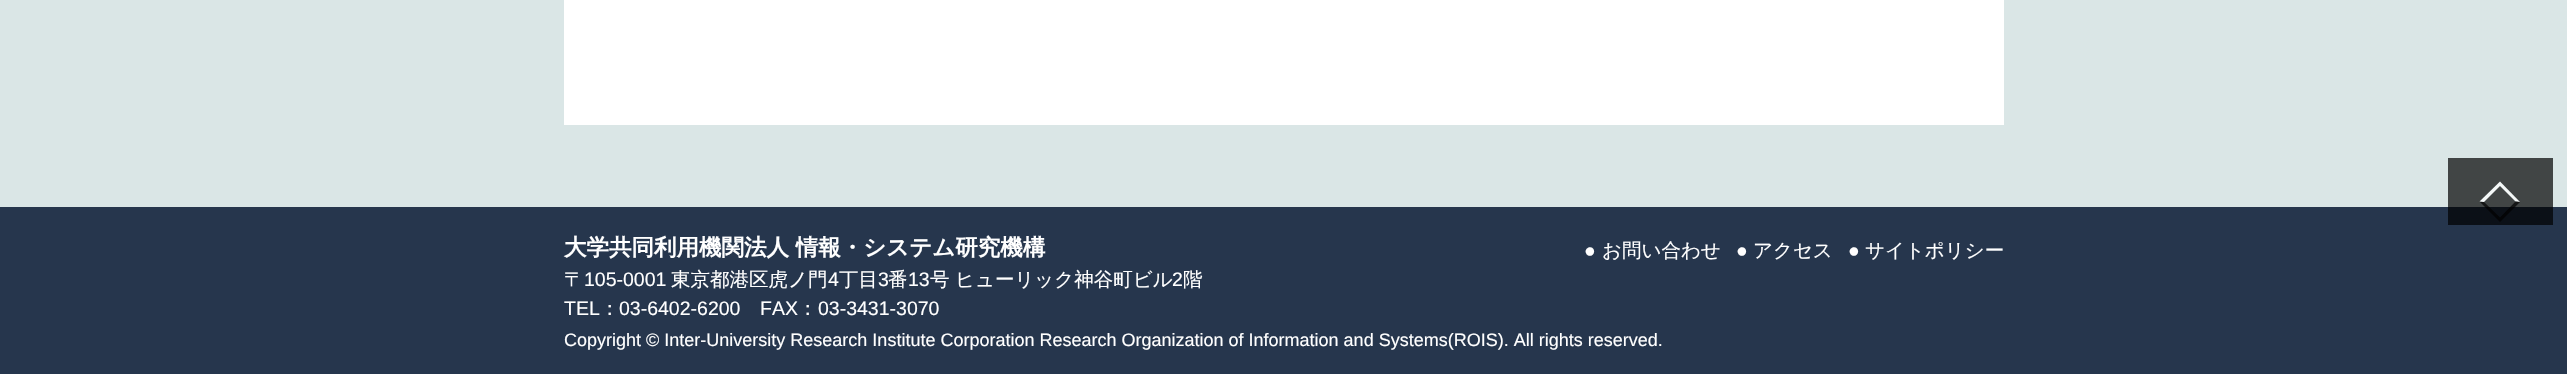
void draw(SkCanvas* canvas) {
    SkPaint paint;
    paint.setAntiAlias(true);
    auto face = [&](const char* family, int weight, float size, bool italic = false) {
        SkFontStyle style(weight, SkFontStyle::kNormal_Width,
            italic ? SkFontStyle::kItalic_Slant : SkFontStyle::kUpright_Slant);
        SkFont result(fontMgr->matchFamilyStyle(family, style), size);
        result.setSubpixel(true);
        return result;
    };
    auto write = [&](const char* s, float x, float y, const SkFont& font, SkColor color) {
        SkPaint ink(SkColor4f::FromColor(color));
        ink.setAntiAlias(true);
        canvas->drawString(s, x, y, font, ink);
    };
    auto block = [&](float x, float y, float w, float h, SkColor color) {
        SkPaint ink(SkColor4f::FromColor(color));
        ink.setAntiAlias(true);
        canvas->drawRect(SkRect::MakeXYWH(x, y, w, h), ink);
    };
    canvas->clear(SkColorSetRGB(218, 230, 230));
    block(2448, 158, 105, 49, SkColorSetRGB(65, 69, 69));
    block(564, 0, 1440, 125, SK_ColorWHITE);
    paint.setColor(SkColorSetRGB(244, 248, 248));
    canvas->drawPath(SkPathBuilder().moveTo(2500, 181.5f).lineTo(2520, 202).lineTo(2515.5f, 201.5f).lineTo(2500, 186).close().detach(), paint);
    block(0, 207, 2567, 167, SkColorSetRGB(38, 54, 77));
    block(2448, 207, 105, 18, SkColorSetRGB(11, 16, 23));
    paint.setColor(SkColorSetARGB(179, 0, 0, 0));
    canvas->drawPath(SkPathBuilder().moveTo(2520, 202).lineTo(2500, 222).lineTo(2500, 217.5f).lineTo(2515.5f, 201.5f).close().moveTo(2500, 222).lineTo(2479.5f, 201.5f).lineTo(2484, 202).lineTo(2500, 217.5f).close().detach(), paint);
    paint.setColor(SkColorSetRGB(244, 248, 248));
    canvas->drawPath(SkPathBuilder().moveTo(2479.5f, 201.5f).lineTo(2500, 181.5f).lineTo(2500, 186).lineTo(2484, 202).close().detach(), paint);
    auto kFont1 = face("WenQuanYi Zen Hei", 700, 22.5f);
    write("大学共同利用機関法人 情報・システム研究機構", 564, 255, kFont1, SK_ColorWHITE);
    auto kFont2 = face("Liberation Sans", 400, 19.5f);
    write("●", 1584, 257, kFont2, SK_ColorWHITE);
    auto kFont3 = face("WenQuanYi Zen Hei", 500, 19.5f);
    write("お問い合わせ", 1602, 257, kFont3, SK_ColorWHITE);
    write("●", 1736, 257, kFont2, SK_ColorWHITE);
    write("アクセス", 1753, 257, kFont3, SK_ColorWHITE);
    write("●", 1848, 257, kFont2, SK_ColorWHITE);
    write("サイトポリシー", 1865, 257, kFont3, SK_ColorWHITE);
    write("〒", 564, 286, kFont3, SK_ColorWHITE);
    write("105-0001", 584, 286, kFont2, SK_ColorWHITE);
    write("東京都港区虎ノ門", 671, 286, kFont3, SK_ColorWHITE);
    write("4", 828, 286, kFont2, SK_ColorWHITE);
    write("丁目", 839, 286, kFont3, SK_ColorWHITE);
    write("3", 878, 286, kFont2, SK_ColorWHITE);
    write("番", 888, 286, kFont3, SK_ColorWHITE);
    write("13", 908, 286, kFont2, SK_ColorWHITE);
    write("号", 930, 286, kFont3, SK_ColorWHITE);
    write("ヒューリック神谷町ビル", 955, 286, kFont3, SK_ColorWHITE);
    write("2", 1172, 286, kFont2, SK_ColorWHITE);
    write("階", 1183, 286, kFont3, SK_ColorWHITE);
    write("TEL", 564, 315, kFont2, SK_ColorWHITE);
    write("：", 600, 315, kFont3, SK_ColorWHITE);
    write("03-6402-6200", 619, 315, kFont2, SK_ColorWHITE);
    write("FAX", 760, 315, kFont2, SK_ColorWHITE);
    write("：", 798, 315, kFont3, SK_ColorWHITE);
    write("03-3431-3070", 818, 315, kFont2, SK_ColorWHITE);
    auto kFont4 = face("Liberation Sans", 400, 18);
    write("Copyright © Inter-University Research Institute Corporation Research Organization of Information and Systems(ROIS). All rights reserved.", 564, 346, kFont4, SK_ColorWHITE);
}
